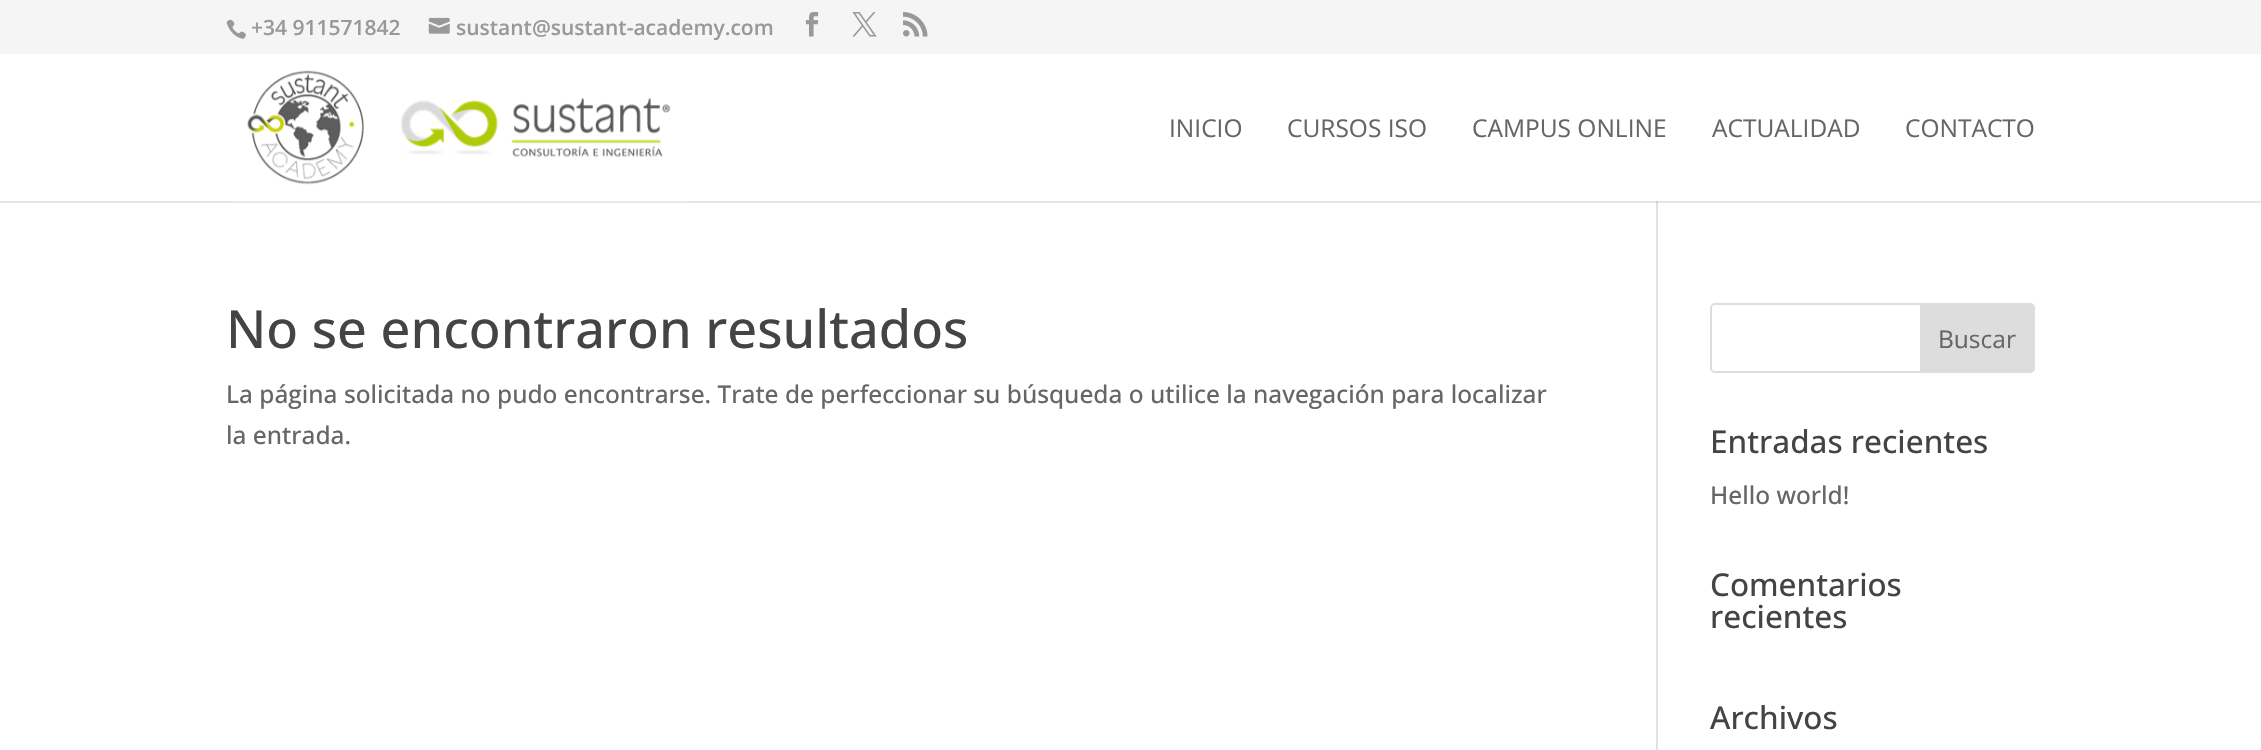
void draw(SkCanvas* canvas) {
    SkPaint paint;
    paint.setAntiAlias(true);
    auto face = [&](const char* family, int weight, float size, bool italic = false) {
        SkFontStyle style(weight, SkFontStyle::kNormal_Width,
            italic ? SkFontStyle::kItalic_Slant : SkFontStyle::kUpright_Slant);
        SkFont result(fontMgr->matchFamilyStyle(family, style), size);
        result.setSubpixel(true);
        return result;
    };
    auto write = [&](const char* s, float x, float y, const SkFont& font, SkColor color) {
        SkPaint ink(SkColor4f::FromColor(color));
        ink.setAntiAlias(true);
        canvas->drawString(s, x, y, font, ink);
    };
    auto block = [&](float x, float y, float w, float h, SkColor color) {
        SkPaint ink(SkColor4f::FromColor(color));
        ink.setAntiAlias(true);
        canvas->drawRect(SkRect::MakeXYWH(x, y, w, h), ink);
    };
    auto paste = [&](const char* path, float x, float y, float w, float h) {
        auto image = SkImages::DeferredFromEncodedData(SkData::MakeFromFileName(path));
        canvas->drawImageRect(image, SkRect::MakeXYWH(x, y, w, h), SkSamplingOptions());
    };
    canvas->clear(SK_ColorWHITE);
    block(0, 201, 2261, 2, SkColorSetRGB(230, 230, 230));
    block(0, 0, 2261, 54, SkColorSetRGB(245, 245, 245));
    paste("pic1.png", 226, 19, 20, 20);
    auto kFont1 = face("Open Sans", 600, 21);
    write("+34 911571842", 251, 35, kFont1, SkColorSetRGB(153, 153, 153));
    paste("pic2.png", 428, 17, 22, 17);
    write("sustant@sustant-academy.com", 456, 35, kFont1, SkColorSetRGB(153, 153, 153));
    paste("pic3.png", 805, 12, 14, 25);
    paste("pic4.png", 852, 12, 25, 25);
    paste("pic5.png", 903, 12, 25, 25);
    paste("pic6.png", 233, 70, 453, 132);
    auto kFont2 = face("Open Sans", 400, 24.5f);
    write("INICIO", 1169, 137, kFont2, SkColorSetRGB(102, 102, 102));
    write("CURSOS ISO", 1287, 137, kFont2, SkColorSetRGB(102, 102, 102));
    write("CAMPUS ONLINE", 1472, 137, kFont2, SkColorSetRGB(102, 102, 102));
    write("ACTUALIDAD", 1712, 137, kFont2, SkColorSetRGB(102, 102, 102));
    write("CONTACTO", 1905, 137, kFont2, SkColorSetRGB(102, 102, 102));
    block(1656, 201, 2, 549, SkColorSetRGB(226, 226, 226));
    block(1656, 201, 2, 2, SkColorSetRGB(203, 203, 203));
    auto kFont3 = face("Open Sans", 500, 52.5f);
    write("No se encontraron resultados", 226, 348, kFont3, SkColorSetRGB(68, 68, 68));
    auto kFont4 = face("Open Sans", 500, 24.5f);
    write("La página solicitada no pudo encontrarse. Trate de perfeccionar su búsqueda o utilice la navegación para localizar", 226, 403, kFont4, SkColorSetRGB(102, 102, 102));
    write("la entrada.", 226, 444, kFont4, SkColorSetRGB(102, 102, 102));
    paint.setStyle(SkPaint::kStroke_Style);
    paint.setStrokeWidth(2);
    paint.setColor(SkColorSetRGB(221, 221, 221));
    canvas->drawRoundRect(SkRect::MakeXYWH(1711, 304, 323, 68), 4, 4, paint);
    paint.setStyle(SkPaint::kFill_Style);
    canvas->drawPath(SkPathBuilder().moveTo(1921, 304).lineTo(2030, 304).cubicTo(2032, 304, 2034, 306, 2034, 308).lineTo(2034, 368).cubicTo(2034, 370, 2032, 372, 2030, 372).lineTo(1921, 372).close().detach(), paint);
    paint.setStyle(SkPaint::kStroke_Style);
    canvas->drawPath(SkPathBuilder().moveTo(1921, 304).lineTo(2030, 304).cubicTo(2032, 304, 2034, 306, 2034, 308).lineTo(2034, 368).cubicTo(2034, 370, 2032, 372, 2030, 372).lineTo(1921, 372).close().detach(), paint);
    write("Buscar", 1938, 348, kFont2, SkColorSetRGB(102, 102, 102));
    auto kFont5 = face("Open Sans", 500, 31.5f);
    write("Entradas recientes", 1710, 453, kFont5, SkColorSetRGB(68, 68, 68));
    write("Hello world!", 1710, 504, kFont4, SkColorSetRGB(102, 102, 102));
    write("Comentarios", 1710, 596, kFont5, SkColorSetRGB(68, 68, 68));
    write("recientes", 1710, 628, kFont5, SkColorSetRGB(68, 68, 68));
    write("Archivos", 1710, 729, kFont5, SkColorSetRGB(68, 68, 68));
}
